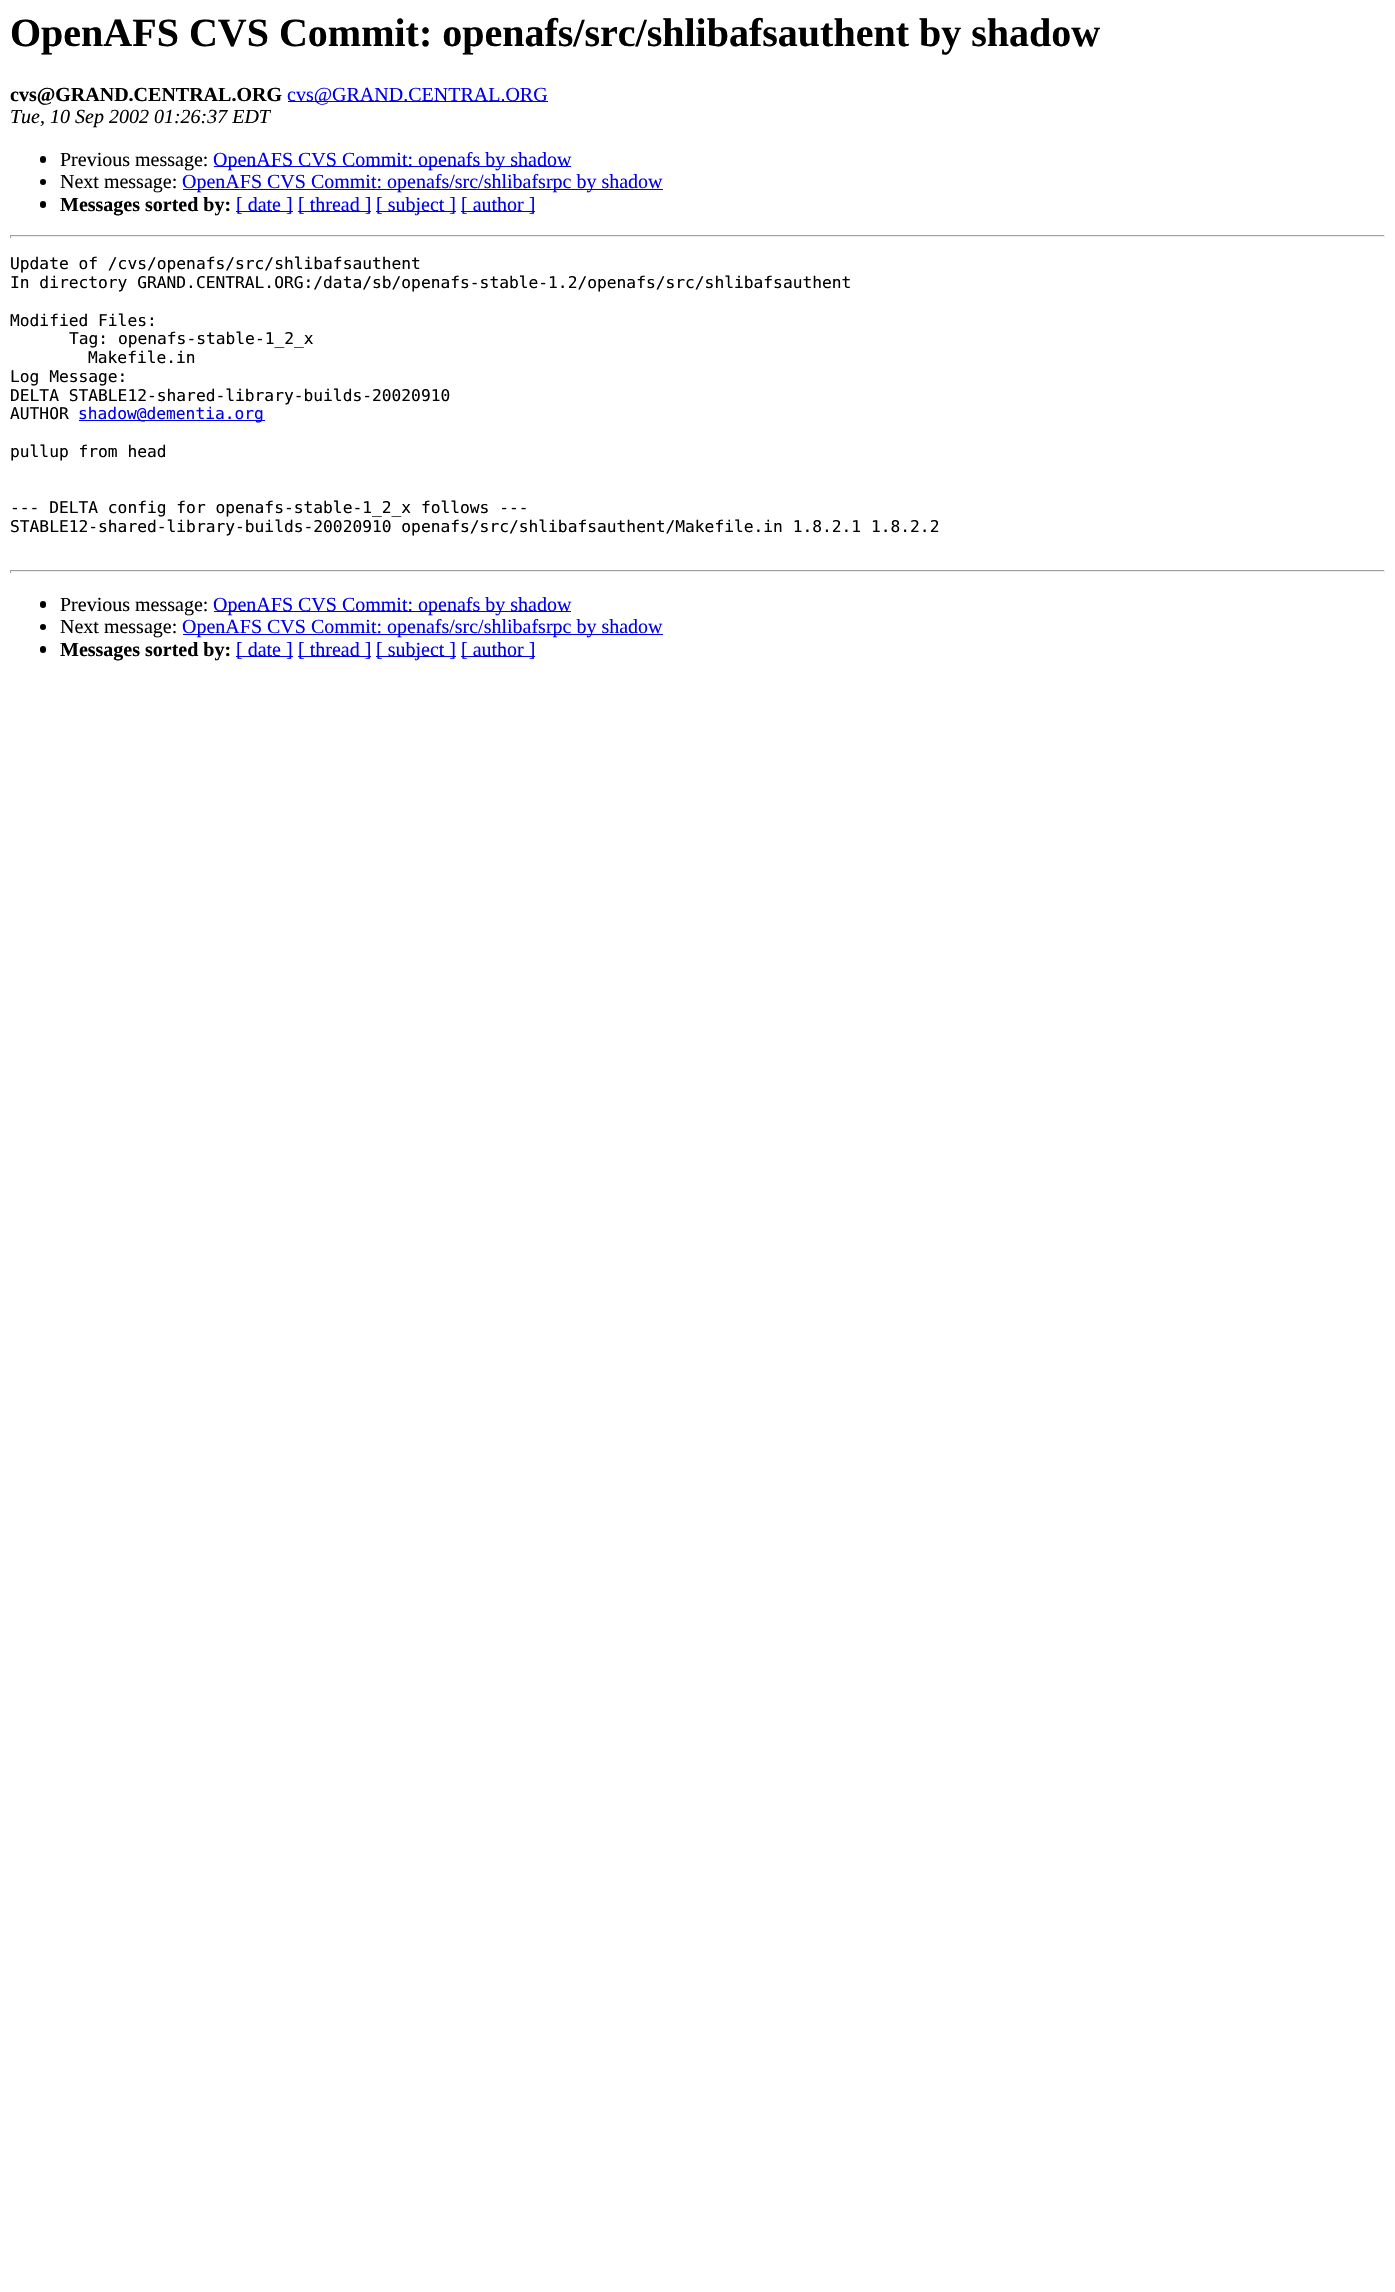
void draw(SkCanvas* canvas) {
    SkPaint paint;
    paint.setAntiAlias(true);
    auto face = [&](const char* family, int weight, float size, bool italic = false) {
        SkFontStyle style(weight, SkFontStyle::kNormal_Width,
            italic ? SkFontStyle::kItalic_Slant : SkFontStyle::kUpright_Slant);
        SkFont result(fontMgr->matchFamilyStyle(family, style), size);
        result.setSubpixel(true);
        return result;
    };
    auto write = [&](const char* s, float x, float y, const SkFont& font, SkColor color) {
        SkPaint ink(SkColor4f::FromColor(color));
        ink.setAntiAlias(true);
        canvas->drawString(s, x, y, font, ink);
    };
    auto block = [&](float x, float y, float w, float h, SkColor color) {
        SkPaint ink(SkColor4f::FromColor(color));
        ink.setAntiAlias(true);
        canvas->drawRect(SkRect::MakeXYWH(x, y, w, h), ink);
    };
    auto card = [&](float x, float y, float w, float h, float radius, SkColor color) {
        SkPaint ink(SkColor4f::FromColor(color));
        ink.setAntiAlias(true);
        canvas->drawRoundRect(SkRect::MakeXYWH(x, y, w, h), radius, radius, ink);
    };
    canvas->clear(SK_ColorWHITE);
    auto kFont1 = face("Liberation Serif", 700, 40);
    write("OpenAFS CVS Commit: openafs/src/shlibafsauthent by shadow", 10, 46, kFont1, SK_ColorBLACK);
    auto kFont2 = face("Liberation Serif", 700, 20);
    write("cvs@GRAND.CENTRAL.ORG", 10, 101, kFont2, SK_ColorBLACK);
    block(288, 101, 260, 1, SkColorSetRGB(0, 0, 238));
    auto kFont3 = face("Liberation Serif", 400, 20);
    write("cvs@GRAND.CENTRAL.ORG", 287, 101, kFont3, SkColorSetRGB(0, 0, 238));
    auto kFont4 = face("Liberation Serif", 400, 20, true);
    write("Tue, 10 Sep 2002 01:26:37 EDT", 10, 123, kFont4, SK_ColorBLACK);
    card(40, 156, 6, 7, 3, SK_ColorBLACK);
    write("Previous message:", 60, 166, kFont3, SK_ColorBLACK);
    block(214, 166, 357, 1, SkColorSetRGB(0, 0, 238));
    write("OpenAFS CVS Commit: openafs by shadow", 213, 166, kFont3, SkColorSetRGB(0, 0, 238));
    paint.setColor(SK_ColorBLACK);
    canvas->drawCircle(43, 182, 3, paint);
    write("Next message:", 60, 188, kFont3, SK_ColorBLACK);
    block(183, 189, 480, 1, SkColorSetRGB(0, 0, 238));
    write("OpenAFS CVS Commit: openafs/src/shlibafsrpc by shadow", 182, 188, kFont3, SkColorSetRGB(0, 0, 238));
    card(40, 201, 6, 7, 3, SK_ColorBLACK);
    write("Messages sorted by:", 60, 211, kFont2, SK_ColorBLACK);
    block(236, 211, 57, 1, SkColorSetRGB(0, 0, 238));
    write("[ date ]", 236, 211, kFont3, SkColorSetRGB(0, 0, 238));
    block(298, 211, 73, 1, SkColorSetRGB(0, 0, 238));
    write("[ thread ]", 298, 211, kFont3, SkColorSetRGB(0, 0, 238));
    block(376, 211, 80, 1, SkColorSetRGB(0, 0, 238));
    write("[ subject ]", 376, 211, kFont3, SkColorSetRGB(0, 0, 238));
    block(461, 211, 74, 1, SkColorSetRGB(0, 0, 238));
    write("[ author ]", 461, 211, kFont3, SkColorSetRGB(0, 0, 238));
    block(10, 235, 1375, 1, SkColorSetRGB(159, 159, 159));
    block(1384, 235, 1, 3, SkColorSetRGB(238, 238, 238));
    block(10, 236, 1375, 1, SkColorSetRGB(238, 238, 238));
    block(10, 235, 1, 3, SkColorSetRGB(159, 159, 159));
    auto kFont5 = face("DejaVu Sans Mono", 400, 16.25f);
    write("Update of /cvs/openafs/src/shlibafsauthent", 10, 269, kFont5, SK_ColorBLACK);
    write("In directory GRAND.CENTRAL.ORG:/data/sb/openafs-stable-1.2/openafs/src/shlibafsauthent", 10, 288, kFont5, SK_ColorBLACK);
    write("Modified Files:", 10, 326, kFont5, SK_ColorBLACK);
    write("Tag: openafs-stable-1_2_x", 69, 344, kFont5, SK_ColorBLACK);
    write("Makefile.in", 88, 363, kFont5, SK_ColorBLACK);
    write("Log Message:", 10, 382, kFont5, SK_ColorBLACK);
    write("DELTA STABLE12-shared-library-builds-20020910", 10, 401, kFont5, SK_ColorBLACK);
    write("AUTHOR", 10, 419, kFont5, SK_ColorBLACK);
    block(79, 420, 186, 1, SkColorSetRGB(0, 0, 238));
    write("shadow@dementia.org", 78, 419, kFont5, SkColorSetRGB(0, 0, 238));
    write("pullup from head", 10, 457, kFont5, SK_ColorBLACK);
    write("--- DELTA config for openafs-stable-1_2_x follows ---", 10, 513, kFont5, SK_ColorBLACK);
    write("STABLE12-shared-library-builds-20020910 openafs/src/shlibafsauthent/Makefile.in 1.8.2.1 1.8.2.2", 10, 532, kFont5, SK_ColorBLACK);
    block(10, 570, 1375, 1, SkColorSetRGB(159, 159, 159));
    block(1384, 570, 1, 3, SkColorSetRGB(238, 238, 238));
    block(10, 571, 1375, 1, SkColorSetRGB(238, 238, 238));
    block(10, 570, 1, 3, SkColorSetRGB(159, 159, 159));
    card(40, 601, 6, 7, 3, SK_ColorBLACK);
    write("Previous message:", 60, 611, kFont3, SK_ColorBLACK);
    block(214, 611, 357, 1, SkColorSetRGB(0, 0, 238));
    write("OpenAFS CVS Commit: openafs by shadow", 213, 611, kFont3, SkColorSetRGB(0, 0, 238));
    canvas->drawCircle(43, 627, 3, paint);
    write("Next message:", 60, 633, kFont3, SK_ColorBLACK);
    block(183, 634, 480, 1, SkColorSetRGB(0, 0, 238));
    write("OpenAFS CVS Commit: openafs/src/shlibafsrpc by shadow", 182, 633, kFont3, SkColorSetRGB(0, 0, 238));
    card(40, 646, 6, 7, 3, SK_ColorBLACK);
    write("Messages sorted by:", 60, 656, kFont2, SK_ColorBLACK);
    block(236, 656, 57, 1, SkColorSetRGB(0, 0, 238));
    write("[ date ]", 236, 656, kFont3, SkColorSetRGB(0, 0, 238));
    block(298, 656, 73, 1, SkColorSetRGB(0, 0, 238));
    write("[ thread ]", 298, 656, kFont3, SkColorSetRGB(0, 0, 238));
    block(376, 656, 80, 1, SkColorSetRGB(0, 0, 238));
    write("[ subject ]", 376, 656, kFont3, SkColorSetRGB(0, 0, 238));
    block(461, 656, 74, 1, SkColorSetRGB(0, 0, 238));
    write("[ author ]", 461, 656, kFont3, SkColorSetRGB(0, 0, 238));
}
